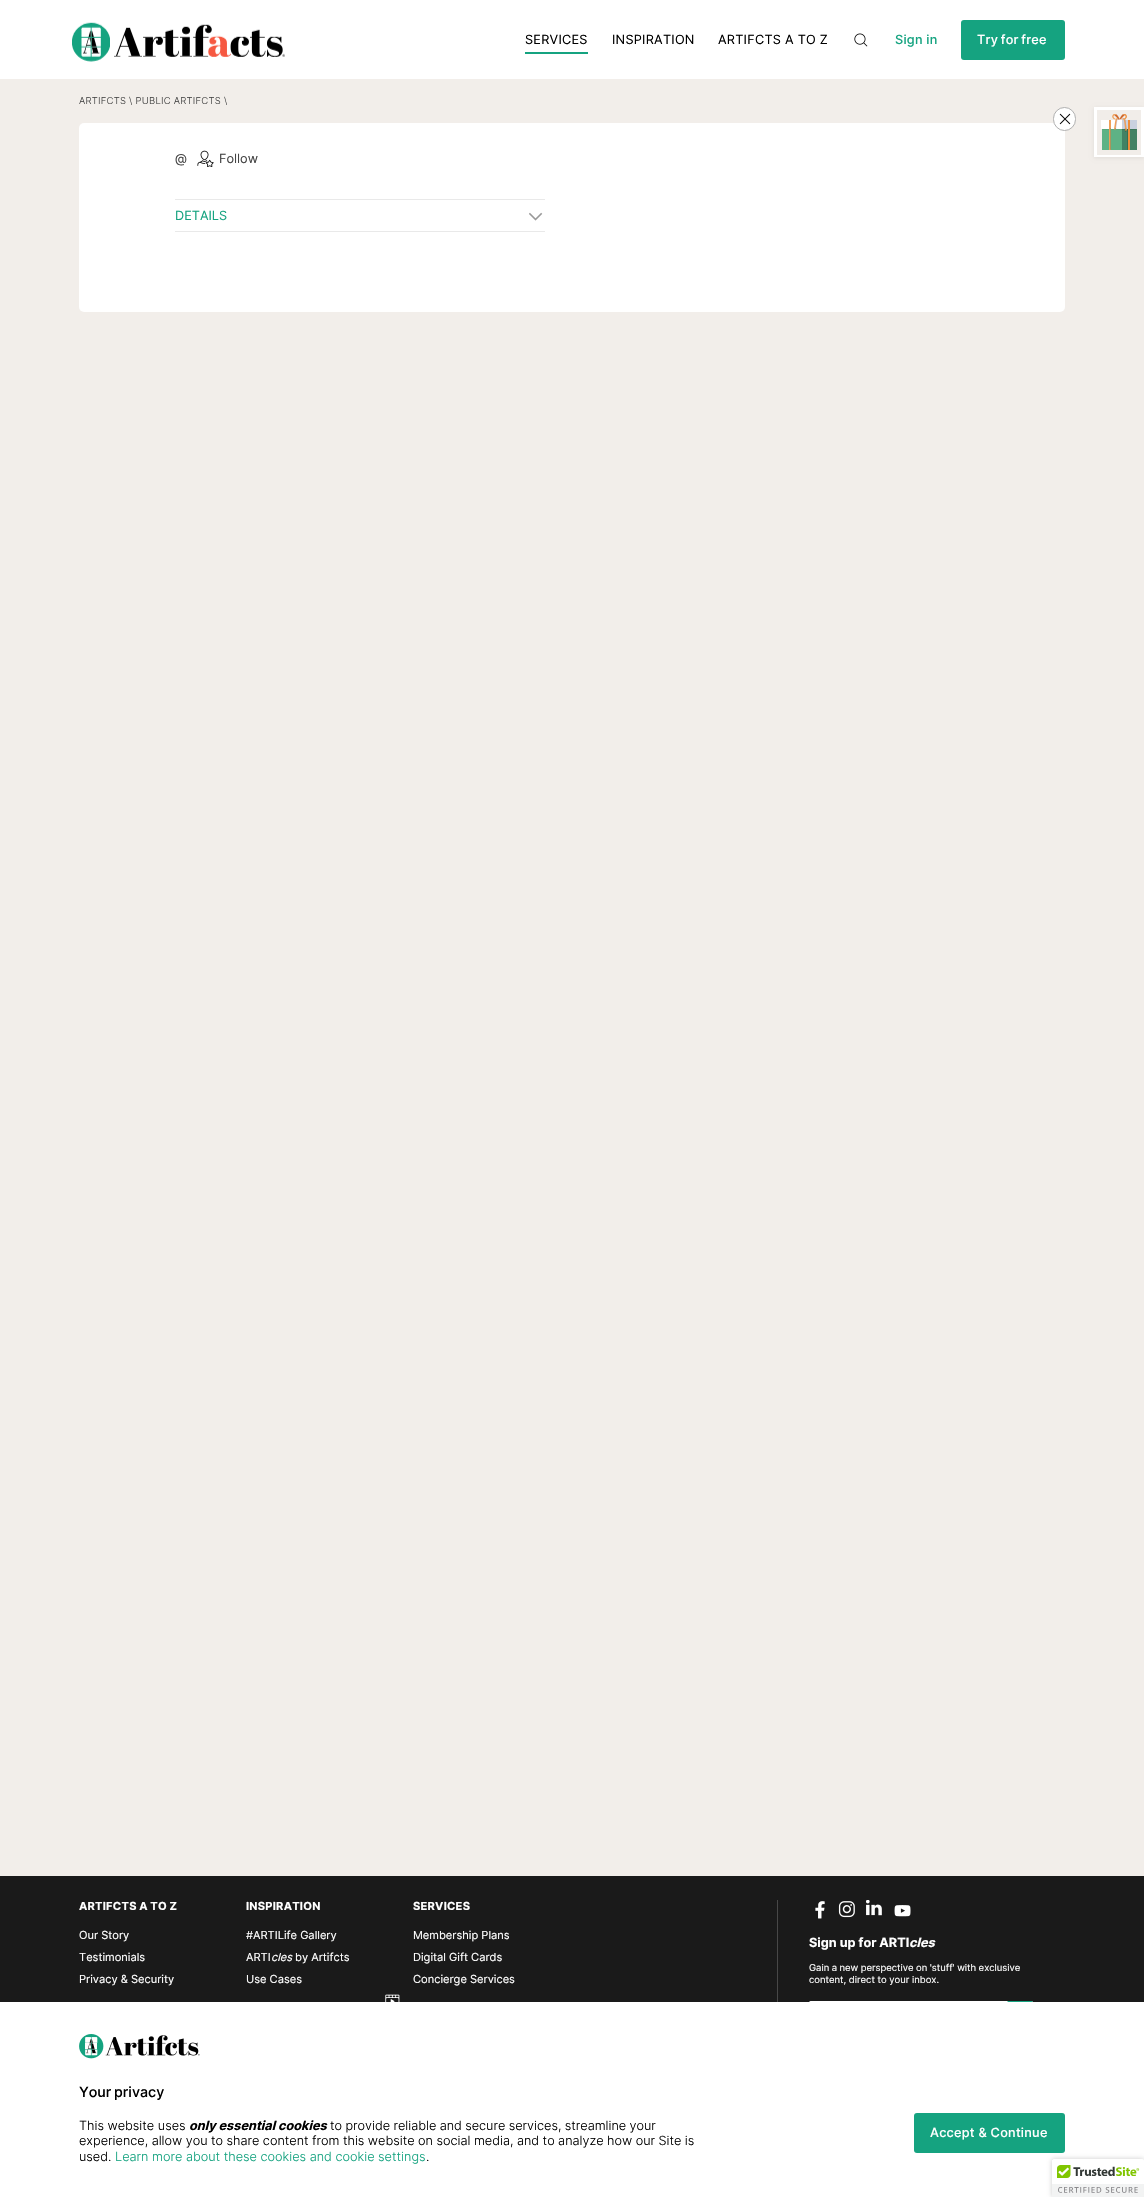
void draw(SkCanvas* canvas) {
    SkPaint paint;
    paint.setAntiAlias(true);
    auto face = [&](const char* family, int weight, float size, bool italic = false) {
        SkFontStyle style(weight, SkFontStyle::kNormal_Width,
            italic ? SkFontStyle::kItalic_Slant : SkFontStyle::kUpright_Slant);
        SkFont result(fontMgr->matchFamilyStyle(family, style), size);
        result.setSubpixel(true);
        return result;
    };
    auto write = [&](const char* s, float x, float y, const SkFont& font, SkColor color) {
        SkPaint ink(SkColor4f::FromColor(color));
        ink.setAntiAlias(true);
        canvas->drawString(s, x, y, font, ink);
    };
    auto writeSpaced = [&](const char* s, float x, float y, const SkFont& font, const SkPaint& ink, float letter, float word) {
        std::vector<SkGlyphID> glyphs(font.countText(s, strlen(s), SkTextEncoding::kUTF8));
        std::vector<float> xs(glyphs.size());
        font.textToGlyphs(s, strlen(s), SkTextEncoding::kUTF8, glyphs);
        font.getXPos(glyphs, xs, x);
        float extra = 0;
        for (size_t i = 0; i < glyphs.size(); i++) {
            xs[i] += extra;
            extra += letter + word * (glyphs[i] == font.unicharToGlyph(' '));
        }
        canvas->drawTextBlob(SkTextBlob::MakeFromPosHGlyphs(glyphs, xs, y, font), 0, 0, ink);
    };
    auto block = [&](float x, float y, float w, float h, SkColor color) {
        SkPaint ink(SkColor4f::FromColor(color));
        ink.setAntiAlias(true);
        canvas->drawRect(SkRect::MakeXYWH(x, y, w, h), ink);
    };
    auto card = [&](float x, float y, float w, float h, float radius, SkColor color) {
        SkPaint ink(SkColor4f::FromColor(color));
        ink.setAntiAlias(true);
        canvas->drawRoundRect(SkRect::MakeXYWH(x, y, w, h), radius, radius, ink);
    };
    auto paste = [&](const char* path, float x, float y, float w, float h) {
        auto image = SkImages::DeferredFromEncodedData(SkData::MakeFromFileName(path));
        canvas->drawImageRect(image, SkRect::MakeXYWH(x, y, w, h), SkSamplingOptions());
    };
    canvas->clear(SkColorSetRGB(242, 238, 234));
    block(0, 0, 1144, 79, SK_ColorWHITE);
    paste("pic1.png", 72, 22, 213, 40);
    auto kFont1 = face("Inter", 400, 12.7f);
    paint.setColor(SK_ColorBLACK);
    writeSpaced("SERVICES", 525, 44, kFont1, paint, 0.25f, 0);
    block(525, 52, 63, 2, SkColorSetRGB(21, 163, 128));
    writeSpaced("INSPIRATION", 612, 44, kFont1, paint, 0.25f, 0);
    writeSpaced("ARTIFCTS A TO Z", 718, 44, kFont1, paint, 0.25f, 0);
    paste("pic2.png", 854, 33, 14, 14);
    auto kFont2 = face("Inter", 500, 12.7f);
    paint.setColor(SkColorSetRGB(21, 163, 128));
    writeSpaced("Sign in", 895, 44, kFont2, paint, 0.25f, 0);
    card(961, 20, 104, 40, 3, SkColorSetRGB(21, 163, 128));
    paint.setColor(SK_ColorWHITE);
    writeSpaced("Try for free", 977, 44, kFont2, paint, 0.25f, -1);
    auto kFont3 = face("Inter", 300, 9.5f);
    paint.setColor(SkColorSetRGB(68, 68, 68));
    writeSpaced("ARTIFCTS \\ PUBLIC ARTIFCTS \\", 79, 104, kFont3, paint, 0.25f, 0);
    card(79, 123, 986, 189, 5, SK_ColorWHITE);
    paint.setColor(SK_ColorWHITE);
    canvas->drawRoundRect(SkRect::MakeXYWH(1053.5f, 107.5f, 22, 23), 11, 11, paint);
    paint.setStyle(SkPaint::kStroke_Style);
    paint.setStrokeWidth(1);
    paint.setColor(SkColorSetRGB(175, 175, 175));
    canvas->drawRoundRect(SkRect::MakeXYWH(1053.5f, 107.5f, 22, 23), 11, 11, paint);
    paste("pic3.png", 1059, 113, 12, 12);
    write("@", 175, 163, kFont1, SkColorSetRGB(68, 68, 68));
    paste("pic4.png", 197, 150, 17, 17);
    write("Follow", 219, 163, kFont1, SkColorSetRGB(68, 68, 68));
    block(175, 199, 370, 1, SkColorSetRGB(233, 233, 233));
    block(175, 231, 370, 1, SkColorSetRGB(233, 233, 233));
    write("DETAILS", 175, 220, kFont1, SkColorSetRGB(21, 163, 128));
    paste("pic5.png", 529, 212, 14, 9);
    paint.setStyle(SkPaint::kFill_Style);
    paint.setColor(SkColorSetARGB(20, 0, 0, 0));
    paint.setMaskFilter(SkMaskFilter::MakeBlur(kNormal_SkBlurStyle, 2));
    canvas->drawRect(SkRect::MakeXYWH(1094, 108, 50, 50), paint);
    paint.setMaskFilter(nullptr);
    block(1094, 107, 50, 50, SK_ColorWHITE);
    block(1097, 110, 44, 45, SkColorSetRGB(241, 237, 233));
    paste("pic6.png", 1101, 114, 36, 36);
    block(0, 1876, 1144, 126, SkColorSetRGB(26, 26, 26));
    auto kFont4 = face("Inter", 700, 11.1f);
    paint.setColor(SK_ColorWHITE);
    writeSpaced("ARTIFCTS A TO Z", 79, 1910, kFont4, paint, 0.25f, -0.25f);
    auto kFont5 = face("Inter", 400, 11.1f);
    write("Our Story", 79, 1939, kFont5, SK_ColorWHITE);
    write("Testimonials", 79, 1961, kFont5, SK_ColorWHITE);
    write("Privacy & Security", 79, 1983, kFont5, SK_ColorWHITE);
    writeSpaced("INSPIRATION", 246, 1910, kFont4, paint, 0.25f, 0);
    write("#ARTILife Gallery", 246, 1939, kFont5, SK_ColorWHITE);
    write("ARTI", 246, 1961, kFont5, SK_ColorWHITE);
    auto kFont6 = face("Inter", 400, 11.1f, true);
    write("cles", 271, 1961, kFont6, SK_ColorWHITE);
    write("by Artifcts", 295, 1961, kFont5, SK_ColorWHITE);
    write("Use Cases", 246, 1983, kFont5, SK_ColorWHITE);
    paste("pic7.png", 385, 1994, 15, 8);
    writeSpaced("SERVICES", 413, 1910, kFont4, paint, 0.25f, 0);
    write("Membership Plans", 413, 1939, kFont5, SK_ColorWHITE);
    write("Digital Gift Cards", 413, 1961, kFont5, SK_ColorWHITE);
    write("Concierge Services", 413, 1983, kFont5, SK_ColorWHITE);
    block(777, 1900, 1, 102, SkColorSetRGB(72, 72, 72));
    paste("pic8.png", 815, 1901, 10, 18);
    paste("pic9.png", 838, 1901, 17, 17);
    paste("pic10.png", 866, 1900, 16, 16);
    paste("pic11.png", 894, 1905, 17, 12);
    auto kFont7 = face("Inter", 700, 12.7f);
    write("Sign up for ARTI", 809, 1947, kFont7, SK_ColorWHITE);
    auto kFont8 = face("Inter", 700, 12.7f, true);
    write("cles", 909, 1947, kFont8, SK_ColorWHITE);
    auto kFont9 = face("Inter", 400, 9.5f);
    writeSpaced("Gain a new perspective on 'stuff' with exclusive", 809, 1971, kFont9, paint, 0, -0.25f);
    write("content, direct to your inbox.", 809, 1983, kFont9, SK_ColorWHITE);
    card(809, 2001, 224, 26, 1.5f, SK_ColorWHITE);
    card(1007, 2001, 26, 26, 1.5f, SkColorSetRGB(21, 163, 128));
    block(0, 2002, 1144, 195, SK_ColorWHITE);
    paste("pic12.png", 79, 2034, 121, 25);
    auto kFont10 = face("Inter", 500, 14.25f);
    paint.setColor(SK_ColorBLACK);
    writeSpaced("Your privacy", 79, 2097, kFont10, paint, 0, -1);
    auto kFont11 = face("Inter", 300, 12.7f);
    write("This website uses", 79, 2130, kFont11, SK_ColorBLACK);
    write("only essential cookies", 189, 2130, kFont8, SK_ColorBLACK);
    writeSpaced("to provide reliable and secure services, streamline your", 330, 2130, kFont11, paint, 0, -0.25f);
    writeSpaced("experience, allow you to share content from this website on social media, and to analyze how our Site is", 79, 2145, kFont11, paint, 0, -0.1f);
    write("used.", 79, 2161, kFont11, SK_ColorBLACK);
    write("Learn more about these cookies and cookie settings", 115, 2161, kFont11, SkColorSetRGB(21, 163, 128));
    write(".", 426, 2161, kFont11, SK_ColorBLACK);
    card(914, 2113, 151, 40, 3, SkColorSetRGB(21, 163, 128));
    paint.setColor(SK_ColorWHITE);
    writeSpaced("Accept & Continue", 930, 2137, kFont2, paint, 0.25f, 0);
    paint.setColor(SkColorSetARGB(51, 0, 0, 0));
    paint.setMaskFilter(SkMaskFilter::MakeBlur(kNormal_SkBlurStyle, 2.5f));
    canvas->drawRoundRect(SkRect::MakeXYWH(1052, 2159, 92, 38), 2, 2, paint);
    paint.setMaskFilter(nullptr);
    paint.setColor(SK_ColorWHITE);
    canvas->drawPath(SkPathBuilder().moveTo(1054, 2159).lineTo(1144, 2159).lineTo(1144, 2197).lineTo(1052, 2197).lineTo(1052, 2161).cubicTo(1052, 2160, 1053, 2159, 1054, 2159).close().detach(), paint);
    paste("pic13.png", 1052, 2159, 92, 38);
}
